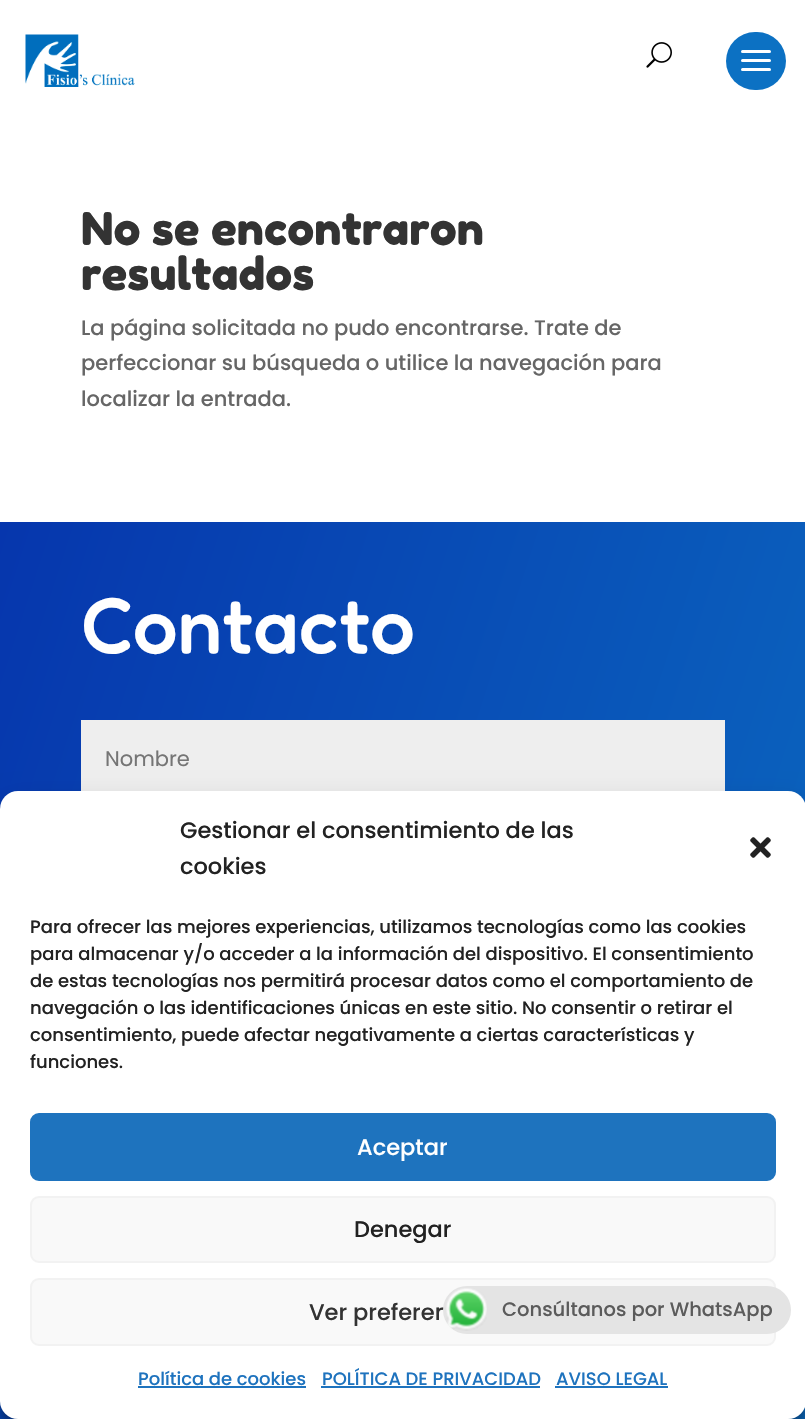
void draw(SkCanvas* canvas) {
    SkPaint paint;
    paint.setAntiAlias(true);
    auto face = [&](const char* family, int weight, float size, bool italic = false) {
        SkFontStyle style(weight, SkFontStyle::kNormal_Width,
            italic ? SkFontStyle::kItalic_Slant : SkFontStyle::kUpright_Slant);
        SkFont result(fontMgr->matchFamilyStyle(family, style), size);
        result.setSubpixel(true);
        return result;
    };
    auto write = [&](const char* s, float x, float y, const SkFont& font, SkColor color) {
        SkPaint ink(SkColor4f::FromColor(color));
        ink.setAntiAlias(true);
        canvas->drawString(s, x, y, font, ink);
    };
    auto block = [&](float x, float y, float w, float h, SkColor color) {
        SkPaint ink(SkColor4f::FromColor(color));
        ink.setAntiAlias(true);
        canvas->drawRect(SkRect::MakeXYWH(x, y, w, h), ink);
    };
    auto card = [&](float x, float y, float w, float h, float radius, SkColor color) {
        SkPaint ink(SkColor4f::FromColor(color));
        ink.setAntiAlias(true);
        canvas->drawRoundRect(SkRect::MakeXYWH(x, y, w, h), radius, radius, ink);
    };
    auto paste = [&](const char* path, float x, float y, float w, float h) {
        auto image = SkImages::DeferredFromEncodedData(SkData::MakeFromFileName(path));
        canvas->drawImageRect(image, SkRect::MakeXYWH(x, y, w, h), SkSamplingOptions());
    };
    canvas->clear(SK_ColorWHITE);
    paste("pic1.png", 25, 34, 110, 53);
    paste("pic2.png", 646, 42, 26, 26);
    card(726, 32, 60, 58, 29, SkColorSetRGB(12, 113, 195));
    card(741, 50, 30, 3, 1.5f, SK_ColorWHITE);
    card(741, 59, 30, 3, 1.5f, SK_ColorWHITE);
    card(741, 68, 30, 3, 1.5f, SK_ColorWHITE);
    auto kFont1 = face("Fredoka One", 400, 45);
    write("No se encontraron", 81, 245, kFont1, SkColorSetRGB(51, 51, 51));
    write("resultados", 81, 290, kFont1, SkColorSetRGB(51, 51, 51));
    auto kFont2 = face("Poppins", 500, 21);
    write("La página solicitada no pudo encontrarse. Trate de", 81, 335, kFont2, SkColorSetRGB(102, 102, 102));
    write("perfeccionar su búsqueda o utilice la navegación para", 81, 370, kFont2, SkColorSetRGB(102, 102, 102));
    write("localizar la entrada.", 81, 406, kFont2, SkColorSetRGB(102, 102, 102));
    {
        const SkColor colors[] = {SkColorSetRGB(6, 54, 173), SkColorSetRGB(12, 113, 195)};
        const float stops[] = {0, 1};
        const SkPoint ends[] = {{-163, 1024}, {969, 1392}};
        paint.setShader(SkGradientShader::MakeLinear(ends, colors, stops, 2, SkTileMode::kClamp));
        paint.setAlpha(255);
    }
    canvas->drawRect(SkRect::MakeXYWH(0, 522, 805, 897), paint);
    auto kFont3 = face("Fredoka", 500, 79.5f);
    write("Contacto", 81, 653, kFont3, SK_ColorWHITE);
    block(81, 720, 644, 71, SkColorSetRGB(238, 238, 238));
    auto kFont4 = face("Poppins", 400, 21);
    write("Nombre", 105, 766, kFont4, SkColorSetRGB(117, 117, 117));
    paint.setShader(nullptr);
    paint.setColor(SkColorSetARGB(59, 0, 0, 0));
    paint.setMaskFilter(SkMaskFilter::MakeBlur(kNormal_SkBlurStyle, 4.5f));
    canvas->drawRoundRect(SkRect::MakeXYWH(0, 800, 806, 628), 18, 18, paint);
    paint.setMaskFilter(nullptr);
    paint.setColor(SkColorSetARGB(48, 0, 0, 0));
    paint.setMaskFilter(SkMaskFilter::MakeBlur(kNormal_SkBlurStyle, 15));
    canvas->drawRoundRect(SkRect::MakeXYWH(0, 806, 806, 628), 18, 18, paint);
    paint.setMaskFilter(nullptr);
    card(0, 791, 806, 628, 18, SK_ColorWHITE);
    auto kFont5 = face("Poppins", 500, 22.5f);
    write("Gestionar el consentimiento de las", 180, 838, kFont5, SkColorSetRGB(34, 34, 34));
    write("cookies", 180, 874, kFont5, SkColorSetRGB(34, 34, 34));
    paste("pic3.png", 750, 837, 21, 21);
    auto kFont6 = face("Poppins", 500, 18);
    write("Para ofrecer las mejores experiencias, utilizamos tecnologías como las cookies", 30, 933, kFont6, SkColorSetRGB(34, 34, 34));
    write("para almacenar y/o acceder a la información del dispositivo. El consentimiento", 30, 960, kFont6, SkColorSetRGB(34, 34, 34));
    write("de estas tecnologías nos permitirá procesar datos como el comportamiento de", 30, 987, kFont6, SkColorSetRGB(34, 34, 34));
    write("navegación o las identificaciones únicas en este sitio. No consentir o retirar el", 30, 1014, kFont6, SkColorSetRGB(34, 34, 34));
    write("consentimiento, puede afectar negativamente a ciertas características y", 30, 1041, kFont6, SkColorSetRGB(34, 34, 34));
    write("funciones.", 30, 1068, kFont6, SkColorSetRGB(34, 34, 34));
    paint.setColor(SkColorSetRGB(30, 115, 190));
    canvas->drawRoundRect(SkRect::MakeXYWH(31, 1114, 744, 66), 8, 8, paint);
    paint.setStyle(SkPaint::kStroke_Style);
    paint.setStrokeWidth(2);
    canvas->drawRoundRect(SkRect::MakeXYWH(31, 1114, 744, 66), 8, 8, paint);
    write("Aceptar", 357, 1155, kFont5, SK_ColorWHITE);
    paint.setStyle(SkPaint::kFill_Style);
    paint.setColor(SkColorSetRGB(249, 249, 249));
    canvas->drawRoundRect(SkRect::MakeXYWH(31, 1197, 744, 65), 8, 8, paint);
    paint.setStyle(SkPaint::kStroke_Style);
    paint.setColor(SkColorSetRGB(242, 242, 242));
    canvas->drawRoundRect(SkRect::MakeXYWH(31, 1197, 744, 65), 8, 8, paint);
    write("Denegar", 354, 1237, kFont5, SkColorSetRGB(34, 34, 34));
    paint.setStyle(SkPaint::kFill_Style);
    paint.setColor(SkColorSetRGB(249, 249, 249));
    canvas->drawRoundRect(SkRect::MakeXYWH(31, 1279, 744, 66), 8, 8, paint);
    paint.setStyle(SkPaint::kStroke_Style);
    paint.setColor(SkColorSetRGB(242, 242, 242));
    canvas->drawRoundRect(SkRect::MakeXYWH(31, 1279, 744, 66), 8, 8, paint);
    write("Ver preferen", 309, 1320, kFont5, SkColorSetRGB(51, 51, 51));
    write("Política de cookies", 138, 1385, kFont6, SkColorSetRGB(30, 115, 190));
    block(138, 1386, 168, 2, SkColorSetRGB(30, 115, 190));
    write("POLÍTICA DE PRIVACIDAD", 322, 1385, kFont6, SkColorSetRGB(30, 115, 190));
    block(321, 1386, 219, 2, SkColorSetRGB(30, 115, 190));
    write("AVISO LEGAL", 556, 1385, kFont6, SkColorSetRGB(30, 115, 190));
    block(555, 1386, 113, 2, SkColorSetRGB(30, 115, 190));
    card(443, 1286, 348, 48, 24, SkColorSetRGB(228, 228, 228));
    paste("pic4.png", 446, 1288, 41, 43);
    auto kFont7 = face("Poppins", 500, 19.5f);
    write("Consúltanos por WhatsApp", 502, 1316, kFont7, SkColorSetRGB(91, 91, 91));
}
